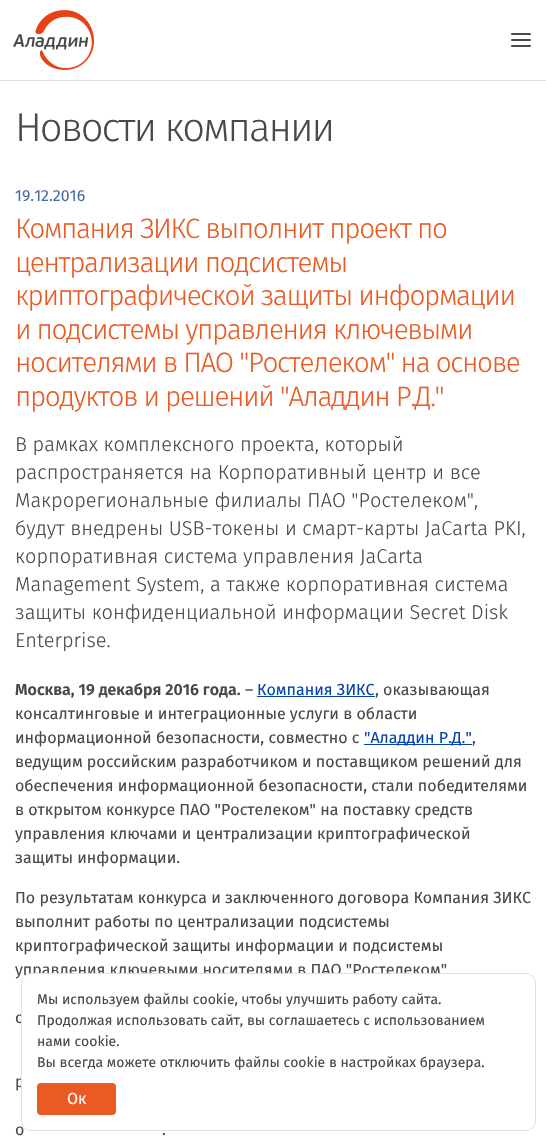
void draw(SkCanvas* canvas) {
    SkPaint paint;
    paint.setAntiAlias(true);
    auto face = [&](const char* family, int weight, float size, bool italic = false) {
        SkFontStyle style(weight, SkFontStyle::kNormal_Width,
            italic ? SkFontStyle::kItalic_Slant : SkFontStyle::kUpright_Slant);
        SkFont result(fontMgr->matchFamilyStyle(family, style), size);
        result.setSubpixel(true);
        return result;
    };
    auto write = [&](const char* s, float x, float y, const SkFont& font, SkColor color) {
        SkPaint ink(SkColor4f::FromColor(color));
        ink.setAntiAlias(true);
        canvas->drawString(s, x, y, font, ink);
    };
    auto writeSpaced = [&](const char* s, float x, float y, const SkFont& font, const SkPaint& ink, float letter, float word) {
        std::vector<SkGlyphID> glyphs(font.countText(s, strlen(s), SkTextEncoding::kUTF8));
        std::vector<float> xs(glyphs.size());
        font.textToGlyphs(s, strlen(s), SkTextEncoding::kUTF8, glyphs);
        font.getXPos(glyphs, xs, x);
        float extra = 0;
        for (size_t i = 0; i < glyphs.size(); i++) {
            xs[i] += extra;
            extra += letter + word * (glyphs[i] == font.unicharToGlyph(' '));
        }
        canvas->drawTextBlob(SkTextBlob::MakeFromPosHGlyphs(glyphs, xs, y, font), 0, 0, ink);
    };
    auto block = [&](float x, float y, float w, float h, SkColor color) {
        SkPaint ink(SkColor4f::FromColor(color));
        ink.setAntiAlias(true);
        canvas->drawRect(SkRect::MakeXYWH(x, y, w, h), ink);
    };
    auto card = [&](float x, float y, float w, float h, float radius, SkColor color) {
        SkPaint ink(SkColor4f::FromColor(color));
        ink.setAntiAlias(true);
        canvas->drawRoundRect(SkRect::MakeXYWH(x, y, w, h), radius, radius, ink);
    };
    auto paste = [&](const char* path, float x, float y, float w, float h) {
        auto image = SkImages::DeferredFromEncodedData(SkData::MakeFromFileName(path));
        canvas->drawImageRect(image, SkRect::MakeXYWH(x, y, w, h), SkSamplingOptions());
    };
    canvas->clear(SK_ColorWHITE);
    block(0, 80, 546, 1, SkColorSetRGB(222, 222, 222));
    paste("pic1.png", 13, 10, 81, 60);
    paint.setStyle(SkPaint::kStroke_Style);
    paint.setStrokeWidth(2);
    paint.setStrokeCap(SkPaint::kRound_Cap);
    paint.setStrokeJoin(SkPaint::kRound_Join);
    paint.setColor(SkColorSetRGB(73, 73, 73));
    canvas->drawPath(SkPathBuilder().moveTo(512, 40).lineTo(530, 40).moveTo(512, 34).lineTo(530, 34).moveTo(512, 46).lineTo(530, 46).detach(), paint);
    auto kFont1 = face("Fira Sans", 300, 40);
    paint.setStyle(SkPaint::kFill_Style);
    writeSpaced("Новости компании", 15, 141, kFont1, paint, -2, 0);
    auto kFont2 = face("Fira Sans", 400, 16);
    write("19.12.2016", 15, 201, kFont2, SkColorSetRGB(72, 109, 170));
    auto kFont3 = face("Fira Sans", 300, 28);
    paint.setColor(SkColorSetRGB(234, 90, 34));
    writeSpaced("Компания ЗИКС выполнит проект по", 15, 238, kFont3, paint, -1.4f, 0);
    writeSpaced("централизации подсистемы", 15, 272, kFont3, paint, -1.4f, 0);
    writeSpaced("криптографической защиты информации", 15, 305, kFont3, paint, -1.4f, 0);
    writeSpaced("и подсистемы управления ключевыми", 15, 339, kFont3, paint, -1.4f, 0);
    writeSpaced("носителями в ПАО \"Ростелеком\" на основе", 15, 372, kFont3, paint, -1.4f, 0);
    writeSpaced("продуктов и решений \"Аладдин Р.Д.\"", 15, 406, kFont3, paint, -1.4f, 0);
    auto kFont4 = face("Fira Sans", 300, 20);
    write("В рамках комплексного проекта, который", 15, 451, kFont4, SkColorSetRGB(73, 73, 73));
    write("распространяется на Корпоративный центр и все", 15, 479, kFont4, SkColorSetRGB(73, 73, 73));
    write("Макрорегиональные филиалы ПАО \"Ростелеком\",", 15, 507, kFont4, SkColorSetRGB(73, 73, 73));
    write("будут внедрены USB-токены и смарт-карты JaCarta PKI,", 15, 535, kFont4, SkColorSetRGB(73, 73, 73));
    write("корпоративная система управления JaСarta", 15, 563, kFont4, SkColorSetRGB(73, 73, 73));
    write("Management System, а также корпоративная система", 15, 591, kFont4, SkColorSetRGB(73, 73, 73));
    write("защиты конфиденциальной информации Secret Disk", 15, 619, kFont4, SkColorSetRGB(73, 73, 73));
    write("Enterprise.", 15, 647, kFont4, SkColorSetRGB(73, 73, 73));
    auto kFont5 = face("Fira Sans", 600, 16);
    write("Москва, 19 декабря 2016 года.", 15, 695, kFont5, SkColorSetRGB(73, 73, 73));
    write("–", 245, 695, kFont2, SkColorSetRGB(73, 73, 73));
    write("Компания ЗИКС", 257, 695, kFont2, SkColorSetRGB(6, 69, 171));
    block(257, 696, 118, 1, SkColorSetRGB(6, 69, 171));
    write(", оказывающая", 375, 695, kFont2, SkColorSetRGB(73, 73, 73));
    write("консалтинговые и интеграционные услуги в области", 15, 719, kFont2, SkColorSetRGB(73, 73, 73));
    write("информационной безопасности, совместно с", 15, 743, kFont2, SkColorSetRGB(73, 73, 73));
    block(364, 744, 108, 1, SkColorSetRGB(6, 69, 171));
    write("\"Аладдин Р.Д.\"", 364, 743, kFont2, SkColorSetRGB(6, 69, 171));
    write(",", 472, 743, kFont2, SkColorSetRGB(73, 73, 73));
    write("ведущим российским разработчиком и поставщиком решений для", 15, 767, kFont2, SkColorSetRGB(73, 73, 73));
    write("обеспечения информационной безопасности, стали победителями", 15, 791, kFont2, SkColorSetRGB(73, 73, 73));
    write("в открытом конкурсе ПАО \"Ростелеком\" на поставку средств", 15, 815, kFont2, SkColorSetRGB(73, 73, 73));
    write("управления ключами и централизации криптографической", 15, 839, kFont2, SkColorSetRGB(73, 73, 73));
    write("защиты информации.", 15, 863, kFont2, SkColorSetRGB(73, 73, 73));
    write("По результатам конкурса и заключенного договора Компания ЗИКС", 15, 903, kFont2, SkColorSetRGB(73, 73, 73));
    write("выполнит работы по централизации подсистемы", 15, 927, kFont2, SkColorSetRGB(73, 73, 73));
    write("криптографической защиты информации и подсистемы", 15, 951, kFont2, SkColorSetRGB(73, 73, 73));
    write("управления ключевыми носителями в ПАО \"Ростелеком\"", 15, 975, kFont2, SkColorSetRGB(73, 73, 73));
    write("с", 15, 1023, kFont2, SkColorSetRGB(73, 73, 73));
    write("р", 15, 1087, kFont2, SkColorSetRGB(73, 73, 73));
    write("о", 15, 1135, kFont2, SkColorSetRGB(73, 73, 73));
    write(".", 162, 1135, kFont2, SkColorSetRGB(73, 73, 73));
    card(21, 973, 515, 158, 10, SK_ColorWHITE);
    paint.setStyle(SkPaint::kStroke_Style);
    paint.setStrokeWidth(1);
    paint.setStrokeCap(SkPaint::kButt_Cap);
    paint.setStrokeJoin(SkPaint::kMiter_Join);
    paint.setColor(SkColorSetARGB(31, 0, 0, 0));
    canvas->drawRoundRect(SkRect::MakeXYWH(21.5f, 973.5f, 514, 157), 9.5f, 9.5f, paint);
    auto kFont6 = face("Fira Sans", 400, 14);
    write("Мы используем файлы cookie, чтобы улучшить работу сайта.", 37, 1004, kFont6, SkColorSetRGB(73, 73, 73));
    write("Продолжая использовать сайт, вы соглашаетесь с использованием", 37, 1025, kFont6, SkColorSetRGB(73, 73, 73));
    write("нами cookie.", 37, 1046, kFont6, SkColorSetRGB(73, 73, 73));
    write("Вы всегда можете отключить файлы cookie в настройках браузера.", 37, 1067, kFont6, SkColorSetRGB(73, 73, 73));
    card(37, 1083, 79, 32, 4, SkColorSetRGB(234, 90, 34));
    write("Ок", 67, 1104, kFont2, SK_ColorWHITE);
}
